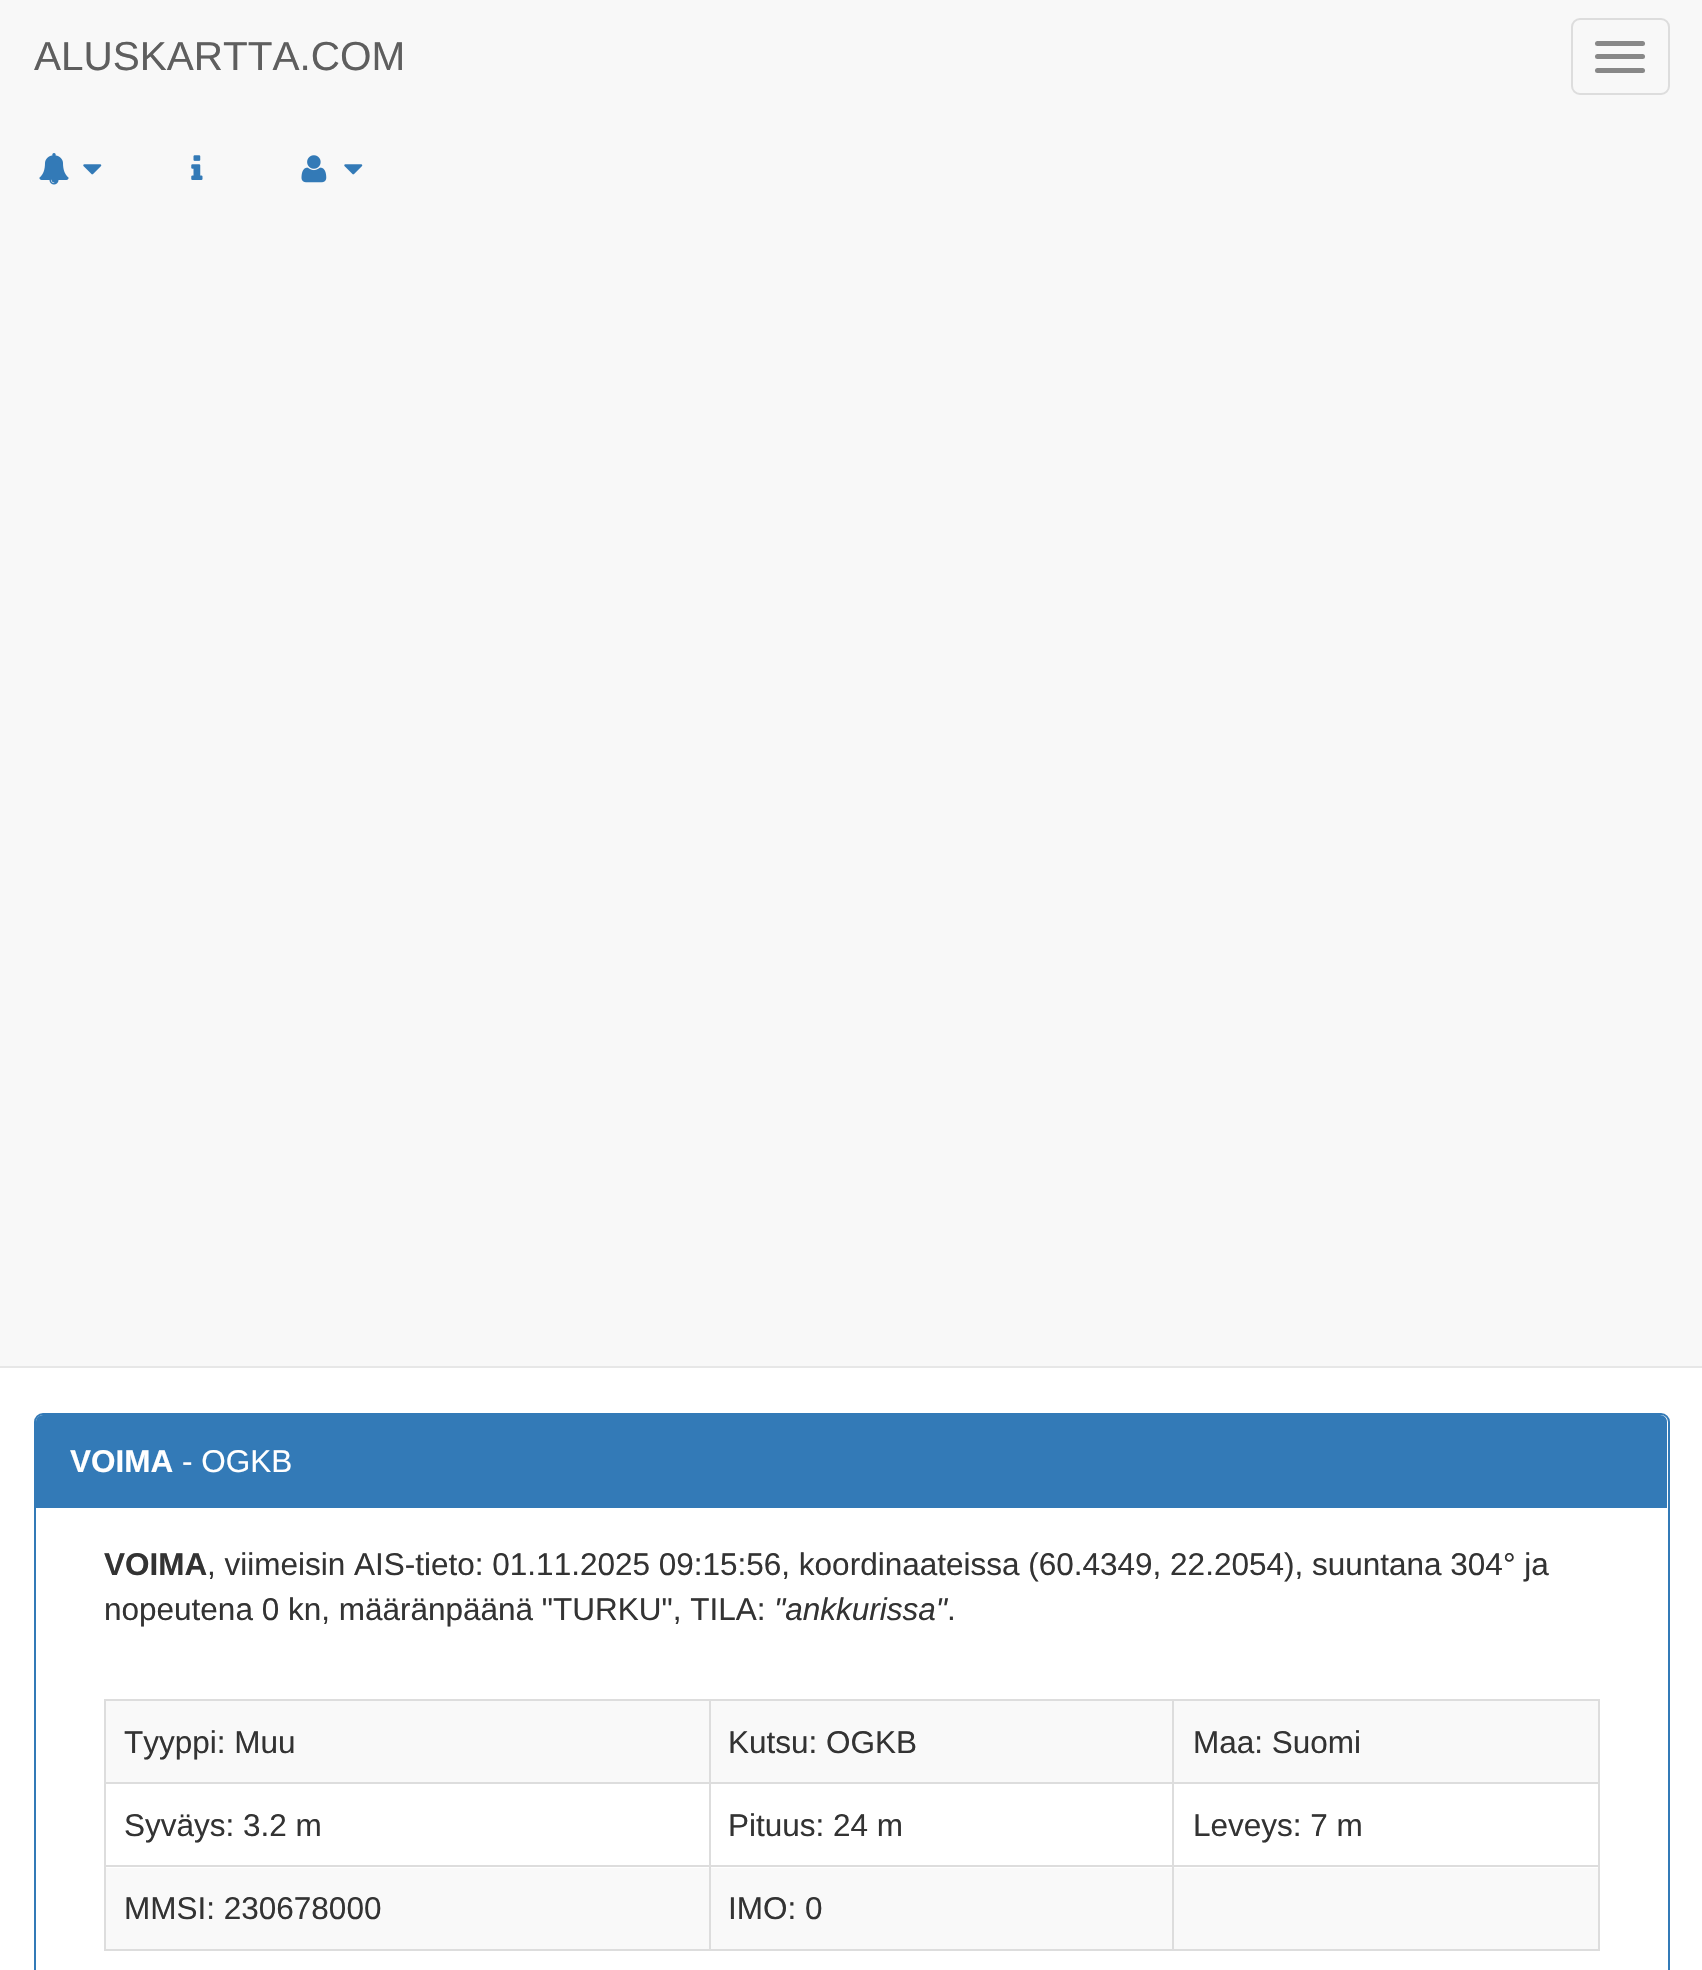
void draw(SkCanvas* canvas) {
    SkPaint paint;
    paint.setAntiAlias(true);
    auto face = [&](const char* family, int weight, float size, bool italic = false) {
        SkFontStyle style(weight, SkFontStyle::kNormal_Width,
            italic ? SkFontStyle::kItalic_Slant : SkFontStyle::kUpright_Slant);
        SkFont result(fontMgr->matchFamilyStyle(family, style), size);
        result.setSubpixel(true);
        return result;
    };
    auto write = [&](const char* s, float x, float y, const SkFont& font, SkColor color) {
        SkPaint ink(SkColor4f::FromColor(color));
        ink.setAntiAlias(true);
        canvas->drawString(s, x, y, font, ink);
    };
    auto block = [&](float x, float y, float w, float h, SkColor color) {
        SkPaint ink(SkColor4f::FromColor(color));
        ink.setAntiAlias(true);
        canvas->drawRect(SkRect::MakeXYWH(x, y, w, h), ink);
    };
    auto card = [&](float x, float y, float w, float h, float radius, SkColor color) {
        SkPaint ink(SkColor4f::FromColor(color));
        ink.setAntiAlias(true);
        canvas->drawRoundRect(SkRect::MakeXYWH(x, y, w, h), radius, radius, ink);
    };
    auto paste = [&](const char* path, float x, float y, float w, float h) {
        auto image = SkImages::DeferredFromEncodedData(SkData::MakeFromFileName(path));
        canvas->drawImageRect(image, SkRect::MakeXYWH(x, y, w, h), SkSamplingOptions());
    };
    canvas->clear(SkColorSetRGB(248, 248, 248));
    block(0, 1366, 1702, 2, SkColorSetRGB(231, 231, 231));
    auto kFont1 = face("Liberation Sans", 400, 40.5f);
    write("ALUSKARTTA.COM", 34, 70, kFont1, SkColorSetRGB(94, 94, 94));
    paint.setStyle(SkPaint::kStroke_Style);
    paint.setStrokeWidth(2);
    paint.setColor(SkColorSetRGB(221, 221, 221));
    canvas->drawRoundRect(SkRect::MakeXYWH(1572, 19, 97, 75), 8, 8, paint);
    card(1595, 41, 50, 5, 2.5f, SkColorSetRGB(136, 136, 136));
    card(1595, 54, 50, 5, 2.5f, SkColorSetRGB(136, 136, 136));
    card(1595, 68, 50, 5, 2.5f, SkColorSetRGB(136, 136, 136));
    paste("pic1.png", 39, 153, 30, 32);
    paste("pic2.png", 83, 164, 19, 11);
    paste("pic3.png", 191, 155, 12, 25);
    paste("pic4.png", 301, 155, 26, 28);
    paste("pic2.png", 344, 164, 19, 11);
    block(0, 1368, 1702, 602, SK_ColorWHITE);
    paint.setColor(SkColorSetRGB(51, 122, 183));
    canvas->drawRoundRect(SkRect::MakeXYWH(35, 1414, 1634, 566), 8, 8, paint);
    paint.setStyle(SkPaint::kFill_Style);
    canvas->drawPath(SkPathBuilder().moveTo(43, 1415).lineTo(1660, 1415).cubicTo(1664, 1415, 1667, 1418, 1667, 1422).lineTo(1667, 1508).lineTo(36, 1508).lineTo(36, 1422).cubicTo(36, 1418, 39, 1415, 43, 1415).close().detach(), paint);
    auto kFont2 = face("Liberation Sans", 700, 31.5f);
    write("VOIMA", 70, 1472, kFont2, SK_ColorWHITE);
    auto kFont3 = face("Liberation Sans", 400, 31.5f);
    write("- OGKB", 182, 1472, kFont3, SK_ColorWHITE);
    write("VOIMA", 104, 1575, kFont2, SkColorSetRGB(51, 51, 51));
    write(", viimeisin AIS-tieto: 01.11.2025 09:15:56, koordinaateissa (60.4349, 22.2054), suuntana 304° ja", 207, 1575, kFont3, SkColorSetRGB(51, 51, 51));
    write("nopeutena 0 kn, määränpäänä \"TURKU\", TILA:", 104, 1620, kFont3, SkColorSetRGB(51, 51, 51));
    auto kFont4 = face("Liberation Sans", 400, 31.5f, true);
    write("\"ankkurissa\"", 774, 1620, kFont4, SkColorSetRGB(51, 51, 51));
    write(".", 947, 1620, kFont3, SkColorSetRGB(51, 51, 51));
    block(104, 1699, 1496, 2, SkColorSetRGB(221, 221, 221));
    block(1598, 1699, 2, 252, SkColorSetRGB(221, 221, 221));
    block(104, 1949, 1496, 2, SkColorSetRGB(221, 221, 221));
    block(104, 1699, 2, 252, SkColorSetRGB(221, 221, 221));
    block(106, 1701, 1492, 81, SkColorSetRGB(249, 249, 249));
    write("Tyyppi: Muu", 124, 1753, kFont3, SkColorSetRGB(51, 51, 51));
    block(1172, 1782, 428, 2, SkColorSetRGB(221, 221, 221));
    block(1172, 1865, 428, 2, SkColorSetRGB(221, 221, 221));
    block(106, 1868, 1492, 81, SkColorSetRGB(249, 249, 249));
    block(1172, 1865, 2, 86, SkColorSetRGB(221, 221, 221));
    block(709, 1865, 466, 2, SkColorSetRGB(221, 221, 221));
    block(1172, 1782, 2, 86, SkColorSetRGB(221, 221, 221));
    block(709, 1782, 466, 2, SkColorSetRGB(221, 221, 221));
    block(709, 1865, 2, 86, SkColorSetRGB(221, 221, 221));
    block(104, 1865, 607, 2, SkColorSetRGB(221, 221, 221));
    block(709, 1782, 2, 86, SkColorSetRGB(221, 221, 221));
    block(104, 1782, 607, 2, SkColorSetRGB(221, 221, 221));
    block(709, 1699, 2, 85, SkColorSetRGB(221, 221, 221));
    write("Kutsu: OGKB", 728, 1753, kFont3, SkColorSetRGB(51, 51, 51));
    block(1172, 1699, 2, 85, SkColorSetRGB(221, 221, 221));
    write("Maa: Suomi", 1193, 1753, kFont3, SkColorSetRGB(51, 51, 51));
    write("Syväys: 3.2 m", 124, 1836, kFont3, SkColorSetRGB(51, 51, 51));
    write("Pituus: 24 m", 728, 1836, kFont3, SkColorSetRGB(51, 51, 51));
    write("Leveys: 7 m", 1193, 1836, kFont3, SkColorSetRGB(51, 51, 51));
    write("MMSI: 230678000", 124, 1919, kFont3, SkColorSetRGB(51, 51, 51));
    write("IMO: 0", 728, 1919, kFont3, SkColorSetRGB(51, 51, 51));
}
